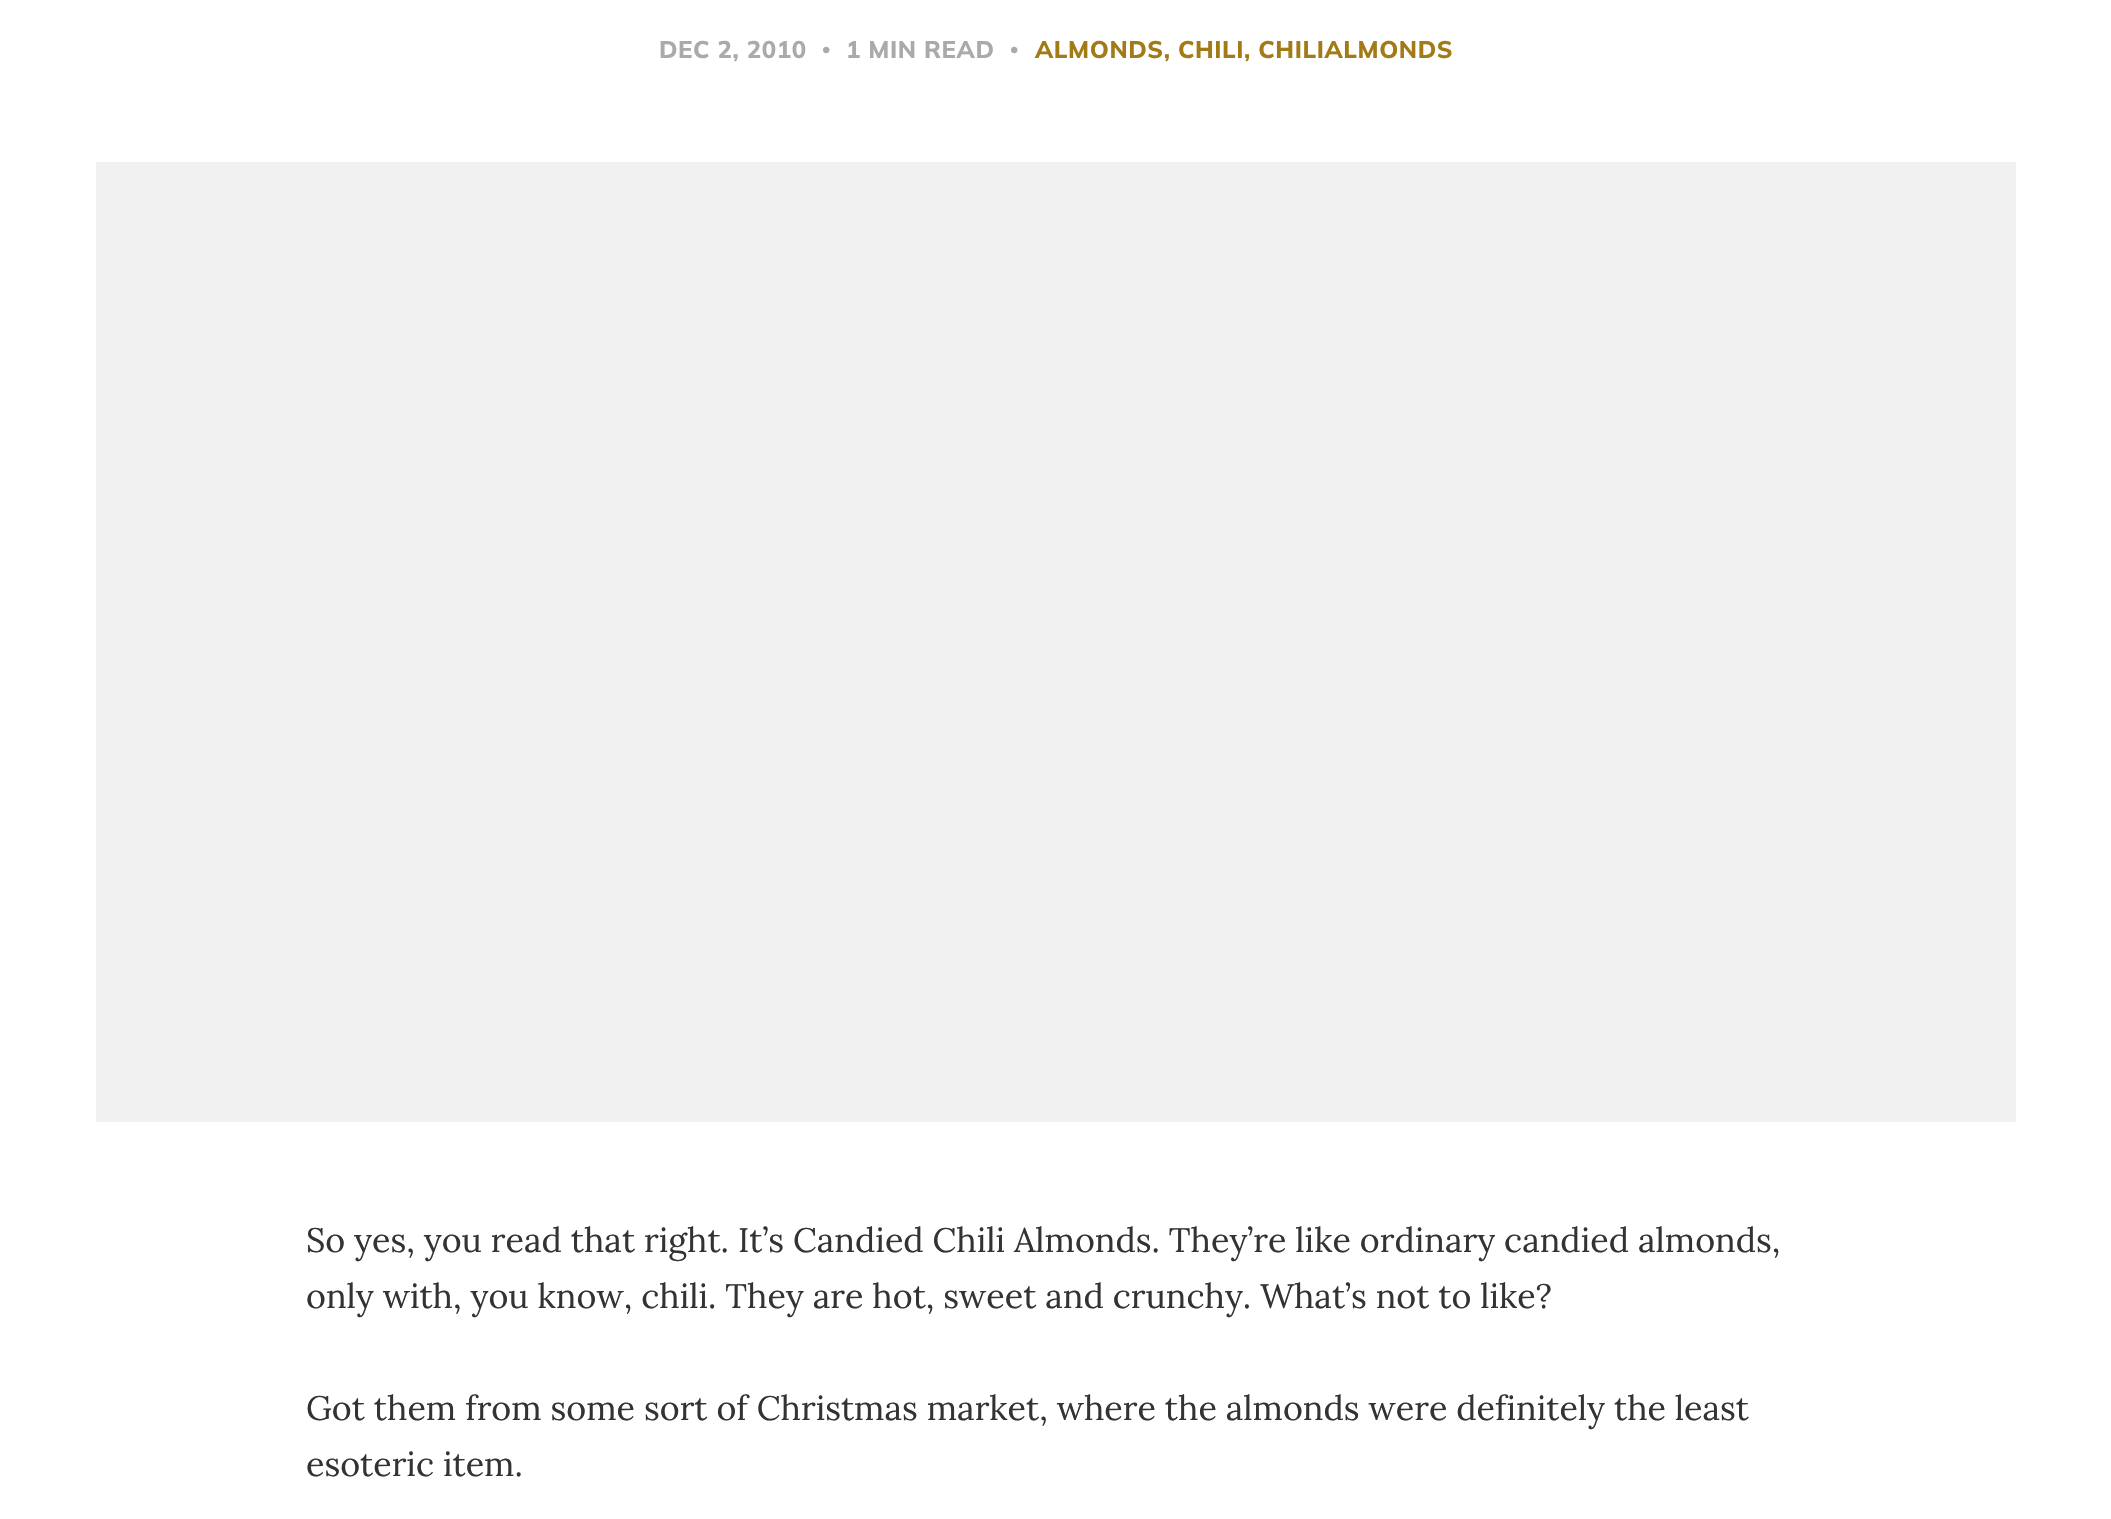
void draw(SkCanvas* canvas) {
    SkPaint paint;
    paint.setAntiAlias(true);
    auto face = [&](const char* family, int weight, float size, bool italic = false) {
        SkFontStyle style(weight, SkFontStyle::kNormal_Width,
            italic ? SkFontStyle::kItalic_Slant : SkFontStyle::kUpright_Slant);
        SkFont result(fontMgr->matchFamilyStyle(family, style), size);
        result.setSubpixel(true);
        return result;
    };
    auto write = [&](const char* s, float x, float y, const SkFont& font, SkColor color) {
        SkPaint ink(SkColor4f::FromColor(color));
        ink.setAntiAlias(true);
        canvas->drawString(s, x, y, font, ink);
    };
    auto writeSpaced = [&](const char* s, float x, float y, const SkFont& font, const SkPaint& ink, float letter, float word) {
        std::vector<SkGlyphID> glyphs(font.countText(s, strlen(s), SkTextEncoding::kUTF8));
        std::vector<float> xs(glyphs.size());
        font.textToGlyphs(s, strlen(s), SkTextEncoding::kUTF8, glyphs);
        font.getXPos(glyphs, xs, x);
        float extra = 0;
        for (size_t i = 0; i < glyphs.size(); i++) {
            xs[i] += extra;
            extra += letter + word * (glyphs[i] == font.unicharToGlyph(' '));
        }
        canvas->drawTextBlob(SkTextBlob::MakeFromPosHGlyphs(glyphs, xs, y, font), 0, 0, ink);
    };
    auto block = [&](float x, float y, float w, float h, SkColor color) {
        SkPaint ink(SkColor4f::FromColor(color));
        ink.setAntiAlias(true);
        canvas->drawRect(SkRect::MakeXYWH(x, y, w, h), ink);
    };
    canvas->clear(SK_ColorWHITE);
    auto kFont1 = face("Mulish", 800, 24);
    paint.setColor(SkColorSetRGB(170, 170, 170));
    writeSpaced("DEC 2, 2010", 659, 58, kFont1, paint, 0.6f, 0);
    auto kFont2 = face("Liberation Serif", 700, 24);
    writeSpaced("•", 822, 58, kFont2, paint, 0.6f, 0);
    writeSpaced("1 MIN READ", 846, 58, kFont1, paint, 0.6f, 0);
    writeSpaced("•", 1010, 58, kFont2, paint, 0.6f, 0);
    paint.setColor(SkColorSetRGB(162, 123, 23));
    writeSpaced("ALMONDS, CHILI, CHILIALMONDS", 1035, 58, kFont1, paint, 0.6f, 0);
    block(96, 162, 1920, 960, SkColorSetRGB(241, 241, 241));
    auto kFont3 = face("Lora", 400, 34);
    write("So yes, you read that right. It’s Candied Chili Almonds. They’re like ordinary candied almonds,", 306, 1252, kFont3, SkColorSetRGB(51, 51, 51));
    write("only with, you know, chili. They are hot, sweet and crunchy. What’s not to like?", 306, 1308, kFont3, SkColorSetRGB(51, 51, 51));
    write("Got them from some sort of Christmas market, where the almonds were definitely the least", 306, 1420, kFont3, SkColorSetRGB(51, 51, 51));
    write("esoteric item.", 306, 1476, kFont3, SkColorSetRGB(51, 51, 51));
}
